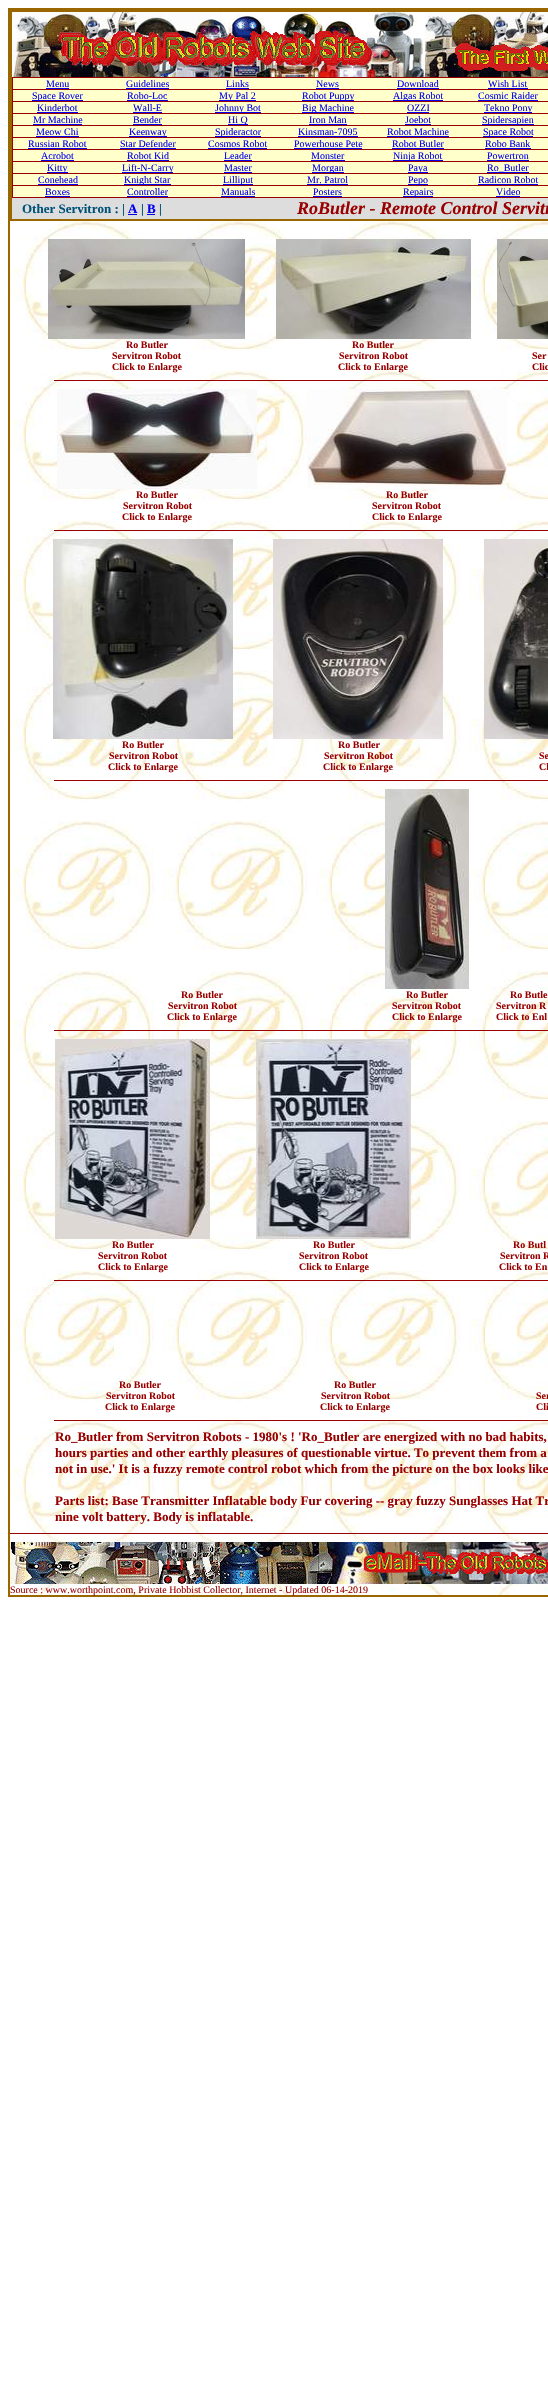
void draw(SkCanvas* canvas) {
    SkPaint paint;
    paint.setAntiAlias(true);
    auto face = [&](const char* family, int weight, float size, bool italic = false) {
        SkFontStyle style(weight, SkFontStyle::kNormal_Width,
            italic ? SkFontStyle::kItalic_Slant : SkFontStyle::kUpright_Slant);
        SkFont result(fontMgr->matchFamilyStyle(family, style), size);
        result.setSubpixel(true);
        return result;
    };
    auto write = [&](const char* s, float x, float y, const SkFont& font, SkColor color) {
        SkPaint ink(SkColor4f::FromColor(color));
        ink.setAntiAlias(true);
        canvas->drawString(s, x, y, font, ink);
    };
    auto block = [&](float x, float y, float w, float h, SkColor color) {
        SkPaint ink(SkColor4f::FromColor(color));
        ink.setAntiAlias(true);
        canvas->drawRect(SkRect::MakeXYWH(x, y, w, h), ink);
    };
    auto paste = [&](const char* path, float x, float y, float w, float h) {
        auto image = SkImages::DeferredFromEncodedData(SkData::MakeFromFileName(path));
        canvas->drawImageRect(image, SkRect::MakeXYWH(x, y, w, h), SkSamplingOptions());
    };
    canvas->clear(SK_ColorWHITE);
    paint.setStyle(SkPaint::kStroke_Style);
    paint.setStrokeWidth(1);
    paint.setColor(SkColorSetRGB(153, 102, 0));
    canvas->drawRect(SkRect::MakeXYWH(8.5f, 8.5f, 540, 1588), paint);
    canvas->drawRect(SkRect::MakeXYWH(9.5f, 9.5f, 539, 1586), paint);
    block(12, 77, 536, 121, SkColorSetRGB(153, 0, 0));
    canvas->drawRect(SkRect::MakeXYWH(10.5f, 10.5f, 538, 210), paint);
    canvas->drawRect(SkRect::MakeXYWH(11.5f, 11.5f, 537, 208), paint);
    paste("pic1.png", 12, 12, 536, 65);
    block(13, 78, 535, 11, SkColorSetRGB(255, 255, 204));
    auto kFont1 = face("Liberation Serif", 400, 10);
    write("Menu", 46, 87, kFont1, SkColorSetRGB(0, 0, 238));
    block(46, 88, 23, 1, SkColorSetRGB(0, 0, 238));
    write("Guidelines", 126, 87, kFont1, SkColorSetRGB(0, 0, 238));
    block(126, 88, 43, 1, SkColorSetRGB(0, 0, 238));
    write("Links", 226, 87, kFont1, SkColorSetRGB(0, 0, 238));
    block(226, 88, 23, 1, SkColorSetRGB(0, 0, 238));
    write("News", 316, 87, kFont1, SkColorSetRGB(0, 0, 238));
    block(316, 88, 23, 1, SkColorSetRGB(0, 0, 238));
    write("Download", 397, 87, kFont1, SkColorSetRGB(0, 0, 238));
    block(397, 88, 42, 1, SkColorSetRGB(0, 0, 238));
    write("Wish List", 488, 87, kFont1, SkColorSetRGB(0, 0, 238));
    block(488, 88, 40, 1, SkColorSetRGB(0, 0, 238));
    block(13, 90, 535, 11, SkColorSetRGB(255, 255, 204));
    block(32, 100, 51, 1, SkColorSetRGB(0, 0, 238));
    write("Space Rover", 32, 99, kFont1, SkColorSetRGB(0, 0, 238));
    write("Robo-Loc", 127, 99, kFont1, SkColorSetRGB(0, 0, 238));
    block(127, 100, 41, 1, SkColorSetRGB(0, 0, 238));
    block(219, 100, 37, 1, SkColorSetRGB(0, 0, 238));
    write("My Pal 2", 219, 99, kFont1, SkColorSetRGB(0, 0, 238));
    block(302, 100, 52, 1, SkColorSetRGB(0, 0, 238));
    write("Robot Puppy", 302, 99, kFont1, SkColorSetRGB(0, 0, 238));
    block(393, 100, 50, 1, SkColorSetRGB(0, 0, 238));
    write("Algas Robot", 393, 99, kFont1, SkColorSetRGB(0, 0, 238));
    write("Cosmic Raider", 478, 99, kFont1, SkColorSetRGB(0, 0, 238));
    block(478, 100, 60, 1, SkColorSetRGB(0, 0, 238));
    block(13, 102, 535, 11, SkColorSetRGB(255, 255, 204));
    write("Kinderbot", 37, 111, kFont1, SkColorSetRGB(0, 0, 238));
    block(37, 112, 41, 1, SkColorSetRGB(0, 0, 238));
    write("Wall-E", 133, 111, kFont1, SkColorSetRGB(0, 0, 238));
    block(133, 112, 29, 1, SkColorSetRGB(0, 0, 238));
    block(215, 112, 46, 1, SkColorSetRGB(0, 0, 238));
    write("Johnny Bot", 215, 111, kFont1, SkColorSetRGB(0, 0, 238));
    block(302, 112, 52, 1, SkColorSetRGB(0, 0, 238));
    write("Big Machine", 302, 111, kFont1, SkColorSetRGB(0, 0, 238));
    write("OZZI", 407, 111, kFont1, SkColorSetRGB(0, 0, 238));
    block(407, 112, 22, 1, SkColorSetRGB(0, 0, 238));
    block(484, 112, 48, 1, SkColorSetRGB(0, 0, 238));
    write("Tekno Pony", 484, 111, kFont1, SkColorSetRGB(0, 0, 238));
    block(13, 114, 535, 11, SkColorSetRGB(255, 255, 204));
    write("Mr Machine", 33, 123, kFont1, SkColorSetRGB(0, 0, 238));
    block(33, 124, 49, 1, SkColorSetRGB(0, 0, 238));
    write("Bender", 133, 123, kFont1, SkColorSetRGB(0, 0, 238));
    block(133, 124, 29, 1, SkColorSetRGB(0, 0, 238));
    block(228, 124, 20, 1, SkColorSetRGB(0, 0, 238));
    write("Hi Q", 228, 123, kFont1, SkColorSetRGB(0, 0, 238));
    write("Iron Man", 309, 123, kFont1, SkColorSetRGB(0, 0, 238));
    block(309, 124, 38, 1, SkColorSetRGB(0, 0, 238));
    write("Joebot", 405, 123, kFont1, SkColorSetRGB(0, 0, 238));
    block(405, 124, 26, 1, SkColorSetRGB(0, 0, 238));
    block(482, 124, 52, 1, SkColorSetRGB(0, 0, 238));
    write("Spidersapien", 482, 123, kFont1, SkColorSetRGB(0, 0, 238));
    block(13, 126, 535, 11, SkColorSetRGB(255, 255, 204));
    write("Meow Chi", 36, 135, kFont1, SkColorSetRGB(0, 0, 238));
    block(36, 136, 43, 1, SkColorSetRGB(0, 0, 238));
    block(129, 136, 38, 1, SkColorSetRGB(0, 0, 238));
    write("Keenway", 129, 135, kFont1, SkColorSetRGB(0, 0, 238));
    block(215, 136, 46, 1, SkColorSetRGB(0, 0, 238));
    write("Spideractor", 215, 135, kFont1, SkColorSetRGB(0, 0, 238));
    write("Kinsman-7095", 298, 135, kFont1, SkColorSetRGB(0, 0, 238));
    block(298, 136, 60, 1, SkColorSetRGB(0, 0, 238));
    write("Robot Machine", 387, 135, kFont1, SkColorSetRGB(0, 0, 238));
    block(387, 136, 62, 1, SkColorSetRGB(0, 0, 238));
    block(483, 136, 50, 1, SkColorSetRGB(0, 0, 238));
    write("Space Robot", 483, 135, kFont1, SkColorSetRGB(0, 0, 238));
    block(13, 138, 535, 11, SkColorSetRGB(255, 255, 204));
    write("Russian Robot", 28, 147, kFont1, SkColorSetRGB(0, 0, 238));
    block(28, 148, 59, 1, SkColorSetRGB(0, 0, 238));
    write("Star Defender", 120, 147, kFont1, SkColorSetRGB(0, 0, 238));
    block(120, 148, 56, 1, SkColorSetRGB(0, 0, 238));
    write("Cosmos Robot", 208, 147, kFont1, SkColorSetRGB(0, 0, 238));
    block(208, 148, 59, 1, SkColorSetRGB(0, 0, 238));
    write("Powerhouse Pete", 294, 147, kFont1, SkColorSetRGB(0, 0, 238));
    block(294, 148, 68, 1, SkColorSetRGB(0, 0, 238));
    write("Robot Butler", 392, 147, kFont1, SkColorSetRGB(0, 0, 238));
    block(392, 148, 52, 1, SkColorSetRGB(0, 0, 238));
    write("Robo Bank", 485, 147, kFont1, SkColorSetRGB(0, 0, 238));
    block(485, 148, 46, 1, SkColorSetRGB(0, 0, 238));
    block(13, 150, 535, 11, SkColorSetRGB(255, 255, 204));
    write("Acrobot", 41, 159, kFont1, SkColorSetRGB(0, 0, 238));
    block(41, 160, 33, 1, SkColorSetRGB(0, 0, 238));
    write("Robot Kid", 127, 159, kFont1, SkColorSetRGB(0, 0, 238));
    block(127, 160, 42, 1, SkColorSetRGB(0, 0, 238));
    write("Leader", 224, 159, kFont1, SkColorSetRGB(0, 0, 238));
    block(224, 160, 28, 1, SkColorSetRGB(0, 0, 238));
    write("Monster", 311, 159, kFont1, SkColorSetRGB(0, 0, 238));
    block(311, 160, 34, 1, SkColorSetRGB(0, 0, 238));
    block(393, 160, 50, 1, SkColorSetRGB(0, 0, 238));
    write("Ninja Robot", 393, 159, kFont1, SkColorSetRGB(0, 0, 238));
    write("Powertron", 487, 159, kFont1, SkColorSetRGB(0, 0, 238));
    block(487, 160, 42, 1, SkColorSetRGB(0, 0, 238));
    block(13, 162, 535, 11, SkColorSetRGB(255, 255, 204));
    block(47, 172, 21, 1, SkColorSetRGB(0, 0, 238));
    write("Kitty", 47, 171, kFont1, SkColorSetRGB(0, 0, 238));
    block(122, 172, 51, 1, SkColorSetRGB(0, 0, 238));
    write("Lift-N-Carry", 122, 171, kFont1, SkColorSetRGB(0, 0, 238));
    write("Master", 224, 171, kFont1, SkColorSetRGB(0, 0, 238));
    block(224, 172, 28, 1, SkColorSetRGB(0, 0, 238));
    block(312, 172, 32, 1, SkColorSetRGB(0, 0, 238));
    write("Morgan", 312, 171, kFont1, SkColorSetRGB(0, 0, 238));
    block(408, 172, 20, 1, SkColorSetRGB(0, 0, 238));
    write("Paya", 408, 171, kFont1, SkColorSetRGB(0, 0, 238));
    block(487, 172, 42, 1, SkColorSetRGB(0, 0, 238));
    write("Ro_Butler", 487, 171, kFont1, SkColorSetRGB(0, 0, 238));
    block(13, 174, 535, 11, SkColorSetRGB(255, 255, 204));
    write("Conehead", 38, 183, kFont1, SkColorSetRGB(0, 0, 238));
    block(38, 184, 40, 1, SkColorSetRGB(0, 0, 238));
    block(124, 184, 47, 1, SkColorSetRGB(0, 0, 238));
    write("Knight Star", 124, 183, kFont1, SkColorSetRGB(0, 0, 238));
    block(223, 184, 30, 1, SkColorSetRGB(0, 0, 238));
    write("Lilliput", 223, 183, kFont1, SkColorSetRGB(0, 0, 238));
    write("Mr. Patrol", 307, 183, kFont1, SkColorSetRGB(0, 0, 238));
    block(307, 184, 41, 1, SkColorSetRGB(0, 0, 238));
    block(408, 184, 20, 1, SkColorSetRGB(0, 0, 238));
    write("Pepo", 408, 183, kFont1, SkColorSetRGB(0, 0, 238));
    write("Radicon Robot", 478, 183, kFont1, SkColorSetRGB(0, 0, 238));
    block(478, 184, 60, 1, SkColorSetRGB(0, 0, 238));
    block(13, 186, 535, 11, SkColorSetRGB(255, 255, 204));
    write("Boxes", 45, 195, kFont1, SkColorSetRGB(0, 0, 238));
    block(45, 196, 25, 1, SkColorSetRGB(0, 0, 238));
    write("Controller", 127, 195, kFont1, SkColorSetRGB(0, 0, 238));
    block(127, 196, 41, 1, SkColorSetRGB(0, 0, 238));
    write("Manuals", 221, 195, kFont1, SkColorSetRGB(0, 0, 238));
    block(221, 196, 34, 1, SkColorSetRGB(0, 0, 238));
    write("Posters", 313, 195, kFont1, SkColorSetRGB(0, 0, 238));
    block(313, 196, 29, 1, SkColorSetRGB(0, 0, 238));
    block(403, 196, 30, 1, SkColorSetRGB(0, 0, 238));
    write("Repairs", 403, 195, kFont1, SkColorSetRGB(0, 0, 238));
    write("Video", 496, 195, kFont1, SkColorSetRGB(0, 0, 238));
    block(496, 196, 24, 1, SkColorSetRGB(0, 0, 238));
    block(12, 198, 536, 21, SkColorSetRGB(221, 221, 221));
    auto kFont2 = face("Liberation Serif", 700, 13);
    write("Other Servitron : |", 22, 213, kFont2, SkColorSetRGB(0, 82, 121));
    write("A", 128, 213, kFont2, SkColorSetRGB(0, 0, 238));
    block(128, 214, 9, 1, SkColorSetRGB(0, 0, 238));
    write("|", 141, 213, kFont2, SkColorSetRGB(0, 82, 121));
    write("B", 147, 213, kFont2, SkColorSetRGB(0, 0, 238));
    block(147, 214, 8, 1, SkColorSetRGB(0, 0, 238));
    write("|", 159, 213, kFont2, SkColorSetRGB(0, 82, 121));
    auto kFont3 = face("Liberation Serif", 700, 18, true);
    write("RoButler - Remote Control Servitr", 297, 214, kFont3, SkColorSetRGB(153, 0, 0));
    paste("pic2.png", 13, 221, 535, 1374);
    paste("pic3.png", 48, 239, 197, 100);
    auto kFont4 = face("Liberation Serif", 700, 10);
    write("Ro Butler", 126, 348, kFont4, SkColorSetRGB(153, 0, 0));
    write("Servitron Robot", 112, 359, kFont4, SkColorSetRGB(153, 0, 0));
    write("Click to Enlarge", 112, 370, kFont4, SkColorSetRGB(153, 0, 0));
    paste("pic4.png", 276, 239, 195, 100);
    write("Ro Butler", 352, 348, kFont4, SkColorSetRGB(153, 0, 0));
    write("Servitron Robot", 339, 359, kFont4, SkColorSetRGB(153, 0, 0));
    write("Click to Enlarge", 338, 370, kFont4, SkColorSetRGB(153, 0, 0));
    paste("pic5.png", 497, 239, 51, 100);
    write("Ser", 532, 359, kFont4, SkColorSetRGB(153, 0, 0));
    write("Clic", 532, 370, kFont4, SkColorSetRGB(153, 0, 0));
    block(54, 380, 494, 1, SkColorSetRGB(153, 0, 0));
    paste("pic6.png", 57, 389, 200, 100);
    write("Ro Butler", 136, 498, kFont4, SkColorSetRGB(153, 0, 0));
    write("Servitron Robot", 123, 509, kFont4, SkColorSetRGB(153, 0, 0));
    write("Click to Enlarge", 122, 520, kFont4, SkColorSetRGB(153, 0, 0));
    paste("pic7.png", 307, 389, 200, 100);
    write("Ro Butler", 386, 498, kFont4, SkColorSetRGB(153, 0, 0));
    write("Servitron Robot", 372, 509, kFont4, SkColorSetRGB(153, 0, 0));
    write("Click to Enlarge", 372, 520, kFont4, SkColorSetRGB(153, 0, 0));
    block(54, 530, 494, 1, SkColorSetRGB(153, 0, 0));
    paste("pic8.png", 53, 539, 180, 200);
    write("Ro Butler", 122, 748, kFont4, SkColorSetRGB(153, 0, 0));
    write("Servitron Robot", 109, 759, kFont4, SkColorSetRGB(153, 0, 0));
    write("Click to Enlarge", 108, 770, kFont4, SkColorSetRGB(153, 0, 0));
    paste("pic9.png", 273, 539, 170, 200);
    write("Ro Butler", 338, 748, kFont4, SkColorSetRGB(153, 0, 0));
    write("Servitron Robot", 324, 759, kFont4, SkColorSetRGB(153, 0, 0));
    write("Click to Enlarge", 323, 770, kFont4, SkColorSetRGB(153, 0, 0));
    paste("pic10.png", 484, 539, 64, 200);
    write("Se", 539, 759, kFont4, SkColorSetRGB(153, 0, 0));
    write("Cl", 539, 770, kFont4, SkColorSetRGB(153, 0, 0));
    block(54, 780, 494, 1, SkColorSetRGB(153, 0, 0));
    write("Ro Butler", 181, 998, kFont4, SkColorSetRGB(153, 0, 0));
    write("Servitron Robot", 168, 1009, kFont4, SkColorSetRGB(153, 0, 0));
    write("Click to Enlarge", 167, 1020, kFont4, SkColorSetRGB(153, 0, 0));
    paste("pic11.png", 385, 789, 84, 200);
    write("Ro Butler", 406, 998, kFont4, SkColorSetRGB(153, 0, 0));
    write("Servitron Robot", 392, 1009, kFont4, SkColorSetRGB(153, 0, 0));
    write("Click to Enlarge", 392, 1020, kFont4, SkColorSetRGB(153, 0, 0));
    write("Ro Butle", 510, 998, kFont4, SkColorSetRGB(153, 0, 0));
    write("Servitron R", 496, 1009, kFont4, SkColorSetRGB(153, 0, 0));
    write("Click to Enl", 496, 1020, kFont4, SkColorSetRGB(153, 0, 0));
    block(54, 1030, 494, 1, SkColorSetRGB(153, 0, 0));
    paste("pic12.png", 55, 1039, 155, 200);
    write("Ro Butler", 112, 1248, kFont4, SkColorSetRGB(153, 0, 0));
    write("Servitron Robot", 98, 1259, kFont4, SkColorSetRGB(153, 0, 0));
    write("Click to Enlarge", 98, 1270, kFont4, SkColorSetRGB(153, 0, 0));
    paste("pic13.png", 256, 1039, 155, 200);
    write("Ro Butler", 313, 1248, kFont4, SkColorSetRGB(153, 0, 0));
    write("Servitron Robot", 299, 1259, kFont4, SkColorSetRGB(153, 0, 0));
    write("Click to Enlarge", 299, 1270, kFont4, SkColorSetRGB(153, 0, 0));
    write("Ro Butl", 513, 1248, kFont4, SkColorSetRGB(153, 0, 0));
    write("Servitron R", 500, 1259, kFont4, SkColorSetRGB(153, 0, 0));
    write("Click to En", 499, 1270, kFont4, SkColorSetRGB(153, 0, 0));
    block(54, 1280, 494, 1, SkColorSetRGB(153, 0, 0));
    write("Ro Butler", 119, 1388, kFont4, SkColorSetRGB(153, 0, 0));
    write("Servitron Robot", 106, 1399, kFont4, SkColorSetRGB(153, 0, 0));
    write("Click to Enlarge", 105, 1410, kFont4, SkColorSetRGB(153, 0, 0));
    write("Ro Butler", 334, 1388, kFont4, SkColorSetRGB(153, 0, 0));
    write("Servitron Robot", 321, 1399, kFont4, SkColorSetRGB(153, 0, 0));
    write("Click to Enlarge", 320, 1410, kFont4, SkColorSetRGB(153, 0, 0));
    write("Ser", 536, 1399, kFont4, SkColorSetRGB(153, 0, 0));
    write("Cli", 536, 1410, kFont4, SkColorSetRGB(153, 0, 0));
    block(54, 1420, 494, 1, SkColorSetRGB(153, 0, 0));
    write("Ro_Butler from Servitron Robots - 1980's ! 'Ro_Butler are energized with no bad habits,", 55, 1441, kFont2, SkColorSetRGB(153, 0, 0));
    write("hours parties and other earthly pleasures of questionable virtue. To prevent them from a", 55, 1457, kFont2, SkColorSetRGB(153, 0, 0));
    write("not in use.' It is a fuzzy remote control robot which from the picture on the box looks like", 55, 1473, kFont2, SkColorSetRGB(153, 0, 0));
    write("Parts list: Base Transmitter Inflatable body Fur covering -- gray fuzzy Sunglasses Hat Tr", 55, 1505, kFont2, SkColorSetRGB(153, 0, 0));
    write("nine volt battery. Body is inflatable.", 55, 1521, kFont2, SkColorSetRGB(153, 0, 0));
    block(10, 1533, 538, 1, SkColorSetRGB(153, 0, 0));
    paste("pic14.png", 10, 1542, 538, 42);
    write("Source : www.worthpoint.com, Private Hobbist Collector, Internet - Updated 06-14-2019", 10, 1593, kFont1, SkColorSetRGB(153, 0, 0));
}
